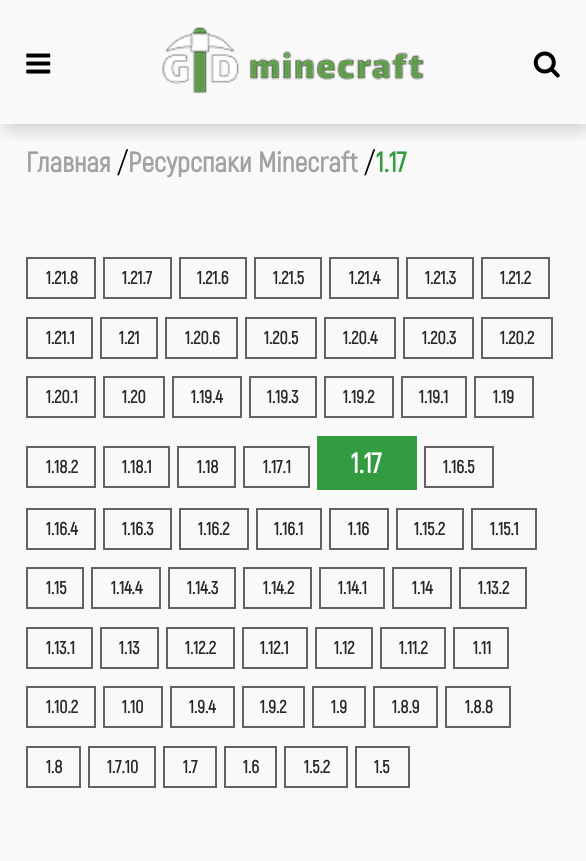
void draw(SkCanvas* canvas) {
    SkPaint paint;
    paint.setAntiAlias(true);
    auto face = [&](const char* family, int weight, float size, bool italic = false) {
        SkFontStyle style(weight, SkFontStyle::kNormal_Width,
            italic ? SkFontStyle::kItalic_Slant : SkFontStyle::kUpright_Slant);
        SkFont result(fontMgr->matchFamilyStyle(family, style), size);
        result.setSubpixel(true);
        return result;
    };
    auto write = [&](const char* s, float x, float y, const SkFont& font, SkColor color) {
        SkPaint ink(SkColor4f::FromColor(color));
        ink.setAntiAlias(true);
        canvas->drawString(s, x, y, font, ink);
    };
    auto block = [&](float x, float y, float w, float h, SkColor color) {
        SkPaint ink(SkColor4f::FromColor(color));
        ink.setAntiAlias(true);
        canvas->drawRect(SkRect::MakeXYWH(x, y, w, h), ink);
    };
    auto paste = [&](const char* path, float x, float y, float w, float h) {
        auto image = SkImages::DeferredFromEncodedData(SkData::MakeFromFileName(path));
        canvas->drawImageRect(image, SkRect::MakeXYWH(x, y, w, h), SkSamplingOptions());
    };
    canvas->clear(SkColorSetRGB(249, 249, 249));
    canvas->save();
    canvas->clipRect(SkRect::MakeXYWH(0, 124, 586, 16));
    paint.setColor(SkColorSetARGB(51, 0, 0, 0));
    paint.setMaskFilter(SkMaskFilter::MakeBlur(kNormal_SkBlurStyle, 9));
    canvas->drawRect(SkRect::MakeXYWH(4, 4, 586, 124), paint);
    paint.setMaskFilter(nullptr);
    canvas->restore();
    paste("pic1.png", 26, 53, 25, 21);
    paste("pic2.png", 162, 27, 262, 66);
    paste("pic3.png", 533, 51, 27, 27);
    auto kFont1 = face("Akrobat", 700, 28);
    write("Главная", 26, 172, kFont1, SkColorSetRGB(161, 161, 161));
    auto kFont2 = face("Akrobat", 400, 28);
    write("/", 117, 172, kFont2, SK_ColorBLACK);
    write("Ресурспаки Minecraft", 128, 172, kFont1, SkColorSetRGB(161, 161, 161));
    write("/", 364, 172, kFont2, SK_ColorBLACK);
    write("1.17", 376, 172, kFont1, SkColorSetRGB(51, 156, 64));
    paint.setStyle(SkPaint::kStroke_Style);
    paint.setStrokeWidth(2);
    paint.setColor(SkColorSetRGB(98, 98, 98));
    canvas->drawRect(SkRect::MakeXYWH(27, 258, 68, 40), paint);
    auto kFont3 = face("Akrobat", 700, 18);
    write("1.21.8", 46, 284, kFont3, SkColorSetRGB(40, 40, 40));
    canvas->drawRect(SkRect::MakeXYWH(104, 258, 67, 40), paint);
    write("1.21.7", 122, 284, kFont3, SkColorSetRGB(40, 40, 40));
    canvas->drawRect(SkRect::MakeXYWH(180, 258, 66, 40), paint);
    write("1.21.6", 197, 284, kFont3, SkColorSetRGB(40, 40, 40));
    canvas->drawRect(SkRect::MakeXYWH(255, 258, 66, 40), paint);
    write("1.21.5", 273, 284, kFont3, SkColorSetRGB(40, 40, 40));
    canvas->drawRect(SkRect::MakeXYWH(330, 258, 68, 40), paint);
    write("1.21.4", 349, 284, kFont3, SkColorSetRGB(40, 40, 40));
    canvas->drawRect(SkRect::MakeXYWH(407, 258, 66, 40), paint);
    write("1.21.3", 425, 284, kFont3, SkColorSetRGB(40, 40, 40));
    canvas->drawRect(SkRect::MakeXYWH(482, 258, 67, 40), paint);
    write("1.21.2", 500, 284, kFont3, SkColorSetRGB(40, 40, 40));
    canvas->drawRect(SkRect::MakeXYWH(27, 318, 65, 40), paint);
    write("1.21.1", 46, 344, kFont3, SkColorSetRGB(40, 40, 40));
    canvas->drawRect(SkRect::MakeXYWH(101, 318, 56, 40), paint);
    write("1.21", 119, 344, kFont3, SkColorSetRGB(40, 40, 40));
    canvas->drawRect(SkRect::MakeXYWH(166, 318, 71, 40), paint);
    write("1.20.6", 185, 344, kFont3, SkColorSetRGB(40, 40, 40));
    canvas->drawRect(SkRect::MakeXYWH(246, 318, 70, 40), paint);
    write("1.20.5", 264, 344, kFont3, SkColorSetRGB(40, 40, 40));
    canvas->drawRect(SkRect::MakeXYWH(325, 318, 70, 40), paint);
    write("1.20.4", 343, 344, kFont3, SkColorSetRGB(40, 40, 40));
    canvas->drawRect(SkRect::MakeXYWH(404, 318, 69, 40), paint);
    write("1.20.3", 422, 344, kFont3, SkColorSetRGB(40, 40, 40));
    canvas->drawRect(SkRect::MakeXYWH(482, 318, 70, 40), paint);
    write("1.20.2", 500, 344, kFont3, SkColorSetRGB(40, 40, 40));
    canvas->drawRect(SkRect::MakeXYWH(27, 377, 68, 40), paint);
    write("1.20.1", 46, 403, kFont3, SkColorSetRGB(40, 40, 40));
    canvas->drawRect(SkRect::MakeXYWH(104, 377, 60, 40), paint);
    write("1.20", 122, 403, kFont3, SkColorSetRGB(40, 40, 40));
    canvas->drawRect(SkRect::MakeXYWH(173, 377, 68, 40), paint);
    write("1.19.4", 191, 403, kFont3, SkColorSetRGB(40, 40, 40));
    canvas->drawRect(SkRect::MakeXYWH(250, 377, 66, 40), paint);
    write("1.19.3", 267, 403, kFont3, SkColorSetRGB(40, 40, 40));
    canvas->drawRect(SkRect::MakeXYWH(325, 377, 68, 40), paint);
    write("1.19.2", 343, 403, kFont3, SkColorSetRGB(40, 40, 40));
    canvas->drawRect(SkRect::MakeXYWH(402, 377, 64, 40), paint);
    write("1.19.1", 419, 403, kFont3, SkColorSetRGB(40, 40, 40));
    canvas->drawRect(SkRect::MakeXYWH(475, 377, 58, 40), paint);
    write("1.19", 493, 403, kFont3, SkColorSetRGB(40, 40, 40));
    canvas->drawRect(SkRect::MakeXYWH(27, 447, 68, 40), paint);
    write("1.18.2", 46, 473, kFont3, SkColorSetRGB(40, 40, 40));
    canvas->drawRect(SkRect::MakeXYWH(104, 447, 65, 40), paint);
    write("1.18.1", 122, 473, kFont3, SkColorSetRGB(40, 40, 40));
    canvas->drawRect(SkRect::MakeXYWH(178, 447, 57, 40), paint);
    write("1.18", 197, 473, kFont3, SkColorSetRGB(40, 40, 40));
    canvas->drawRect(SkRect::MakeXYWH(244, 447, 65, 40), paint);
    write("1.17.1", 263, 473, kFont3, SkColorSetRGB(40, 40, 40));
    block(317, 436, 100, 54, SkColorSetRGB(51, 156, 64));
    write("1.17", 351, 473, kFont1, SK_ColorWHITE);
    canvas->drawRect(SkRect::MakeXYWH(425, 447, 68, 40), paint);
    write("1.16.5", 443, 473, kFont3, SkColorSetRGB(40, 40, 40));
    canvas->drawRect(SkRect::MakeXYWH(27, 509, 68, 40), paint);
    write("1.16.4", 46, 535, kFont3, SkColorSetRGB(40, 40, 40));
    canvas->drawRect(SkRect::MakeXYWH(104, 509, 67, 40), paint);
    write("1.16.3", 122, 535, kFont3, SkColorSetRGB(40, 40, 40));
    canvas->drawRect(SkRect::MakeXYWH(180, 509, 68, 40), paint);
    write("1.16.2", 198, 535, kFont3, SkColorSetRGB(40, 40, 40));
    canvas->drawRect(SkRect::MakeXYWH(257, 509, 64, 40), paint);
    write("1.16.1", 274, 535, kFont3, SkColorSetRGB(40, 40, 40));
    canvas->drawRect(SkRect::MakeXYWH(330, 509, 58, 40), paint);
    write("1.16", 348, 535, kFont3, SkColorSetRGB(40, 40, 40));
    canvas->drawRect(SkRect::MakeXYWH(397, 509, 66, 40), paint);
    write("1.15.2", 414, 535, kFont3, SkColorSetRGB(40, 40, 40));
    canvas->drawRect(SkRect::MakeXYWH(472, 509, 64, 40), paint);
    write("1.15.1", 490, 535, kFont3, SkColorSetRGB(40, 40, 40));
    canvas->drawRect(SkRect::MakeXYWH(27, 568, 56, 40), paint);
    write("1.15", 46, 594, kFont3, SkColorSetRGB(40, 40, 40));
    canvas->drawRect(SkRect::MakeXYWH(92, 568, 68, 40), paint);
    write("1.14.4", 111, 594, kFont3, SkColorSetRGB(40, 40, 40));
    canvas->drawRect(SkRect::MakeXYWH(169, 568, 66, 40), paint);
    write("1.14.3", 187, 594, kFont3, SkColorSetRGB(40, 40, 40));
    canvas->drawRect(SkRect::MakeXYWH(244, 568, 67, 40), paint);
    write("1.14.2", 263, 594, kFont3, SkColorSetRGB(40, 40, 40));
    canvas->drawRect(SkRect::MakeXYWH(320, 568, 64, 40), paint);
    write("1.14.1", 338, 594, kFont3, SkColorSetRGB(40, 40, 40));
    canvas->drawRect(SkRect::MakeXYWH(393, 568, 58, 40), paint);
    write("1.14", 412, 594, kFont3, SkColorSetRGB(40, 40, 40));
    canvas->drawRect(SkRect::MakeXYWH(460, 568, 66, 40), paint);
    write("1.13.2", 478, 594, kFont3, SkColorSetRGB(40, 40, 40));
    canvas->drawRect(SkRect::MakeXYWH(27, 628, 65, 40), paint);
    write("1.13.1", 46, 654, kFont3, SkColorSetRGB(40, 40, 40));
    canvas->drawRect(SkRect::MakeXYWH(101, 628, 57, 40), paint);
    write("1.13", 119, 654, kFont3, SkColorSetRGB(40, 40, 40));
    canvas->drawRect(SkRect::MakeXYWH(167, 628, 67, 40), paint);
    write("1.12.2", 185, 654, kFont3, SkColorSetRGB(40, 40, 40));
    canvas->drawRect(SkRect::MakeXYWH(243, 628, 64, 40), paint);
    write("1.12.1", 260, 654, kFont3, SkColorSetRGB(40, 40, 40));
    canvas->drawRect(SkRect::MakeXYWH(316, 628, 56, 40), paint);
    write("1.12", 334, 654, kFont3, SkColorSetRGB(40, 40, 40));
    canvas->drawRect(SkRect::MakeXYWH(381, 628, 64, 40), paint);
    write("1.11.2", 399, 654, kFont3, SkColorSetRGB(40, 40, 40));
    canvas->drawRect(SkRect::MakeXYWH(454, 628, 54, 40), paint);
    write("1.11", 473, 654, kFont3, SkColorSetRGB(40, 40, 40));
    canvas->drawRect(SkRect::MakeXYWH(27, 687, 68, 40), paint);
    write("1.10.2", 46, 713, kFont3, SkColorSetRGB(40, 40, 40));
    canvas->drawRect(SkRect::MakeXYWH(104, 687, 58, 40), paint);
    write("1.10", 122, 713, kFont3, SkColorSetRGB(40, 40, 40));
    canvas->drawRect(SkRect::MakeXYWH(171, 687, 63, 40), paint);
    write("1.9.4", 189, 713, kFont3, SkColorSetRGB(40, 40, 40));
    canvas->drawRect(SkRect::MakeXYWH(243, 687, 61, 40), paint);
    write("1.9.2", 260, 713, kFont3, SkColorSetRGB(40, 40, 40));
    canvas->drawRect(SkRect::MakeXYWH(313, 687, 52, 40), paint);
    write("1.9", 331, 713, kFont3, SkColorSetRGB(40, 40, 40));
    canvas->drawRect(SkRect::MakeXYWH(374, 687, 63, 40), paint);
    write("1.8.9", 392, 713, kFont3, SkColorSetRGB(40, 40, 40));
    canvas->drawRect(SkRect::MakeXYWH(446, 687, 64, 40), paint);
    write("1.8.8", 465, 713, kFont3, SkColorSetRGB(40, 40, 40));
    canvas->drawRect(SkRect::MakeXYWH(27, 747, 53, 40), paint);
    write("1.8", 46, 773, kFont3, SkColorSetRGB(40, 40, 40));
    canvas->drawRect(SkRect::MakeXYWH(89, 747, 66, 40), paint);
    write("1.7.10", 107, 773, kFont3, SkColorSetRGB(40, 40, 40));
    canvas->drawRect(SkRect::MakeXYWH(164, 747, 52, 40), paint);
    write("1.7", 183, 773, kFont3, SkColorSetRGB(40, 40, 40));
    canvas->drawRect(SkRect::MakeXYWH(225, 747, 51, 40), paint);
    write("1.6", 243, 773, kFont3, SkColorSetRGB(40, 40, 40));
    canvas->drawRect(SkRect::MakeXYWH(285, 747, 62, 40), paint);
    write("1.5.2", 304, 773, kFont3, SkColorSetRGB(40, 40, 40));
    canvas->drawRect(SkRect::MakeXYWH(356, 747, 53, 40), paint);
    write("1.5", 374, 773, kFont3, SkColorSetRGB(40, 40, 40));
}
